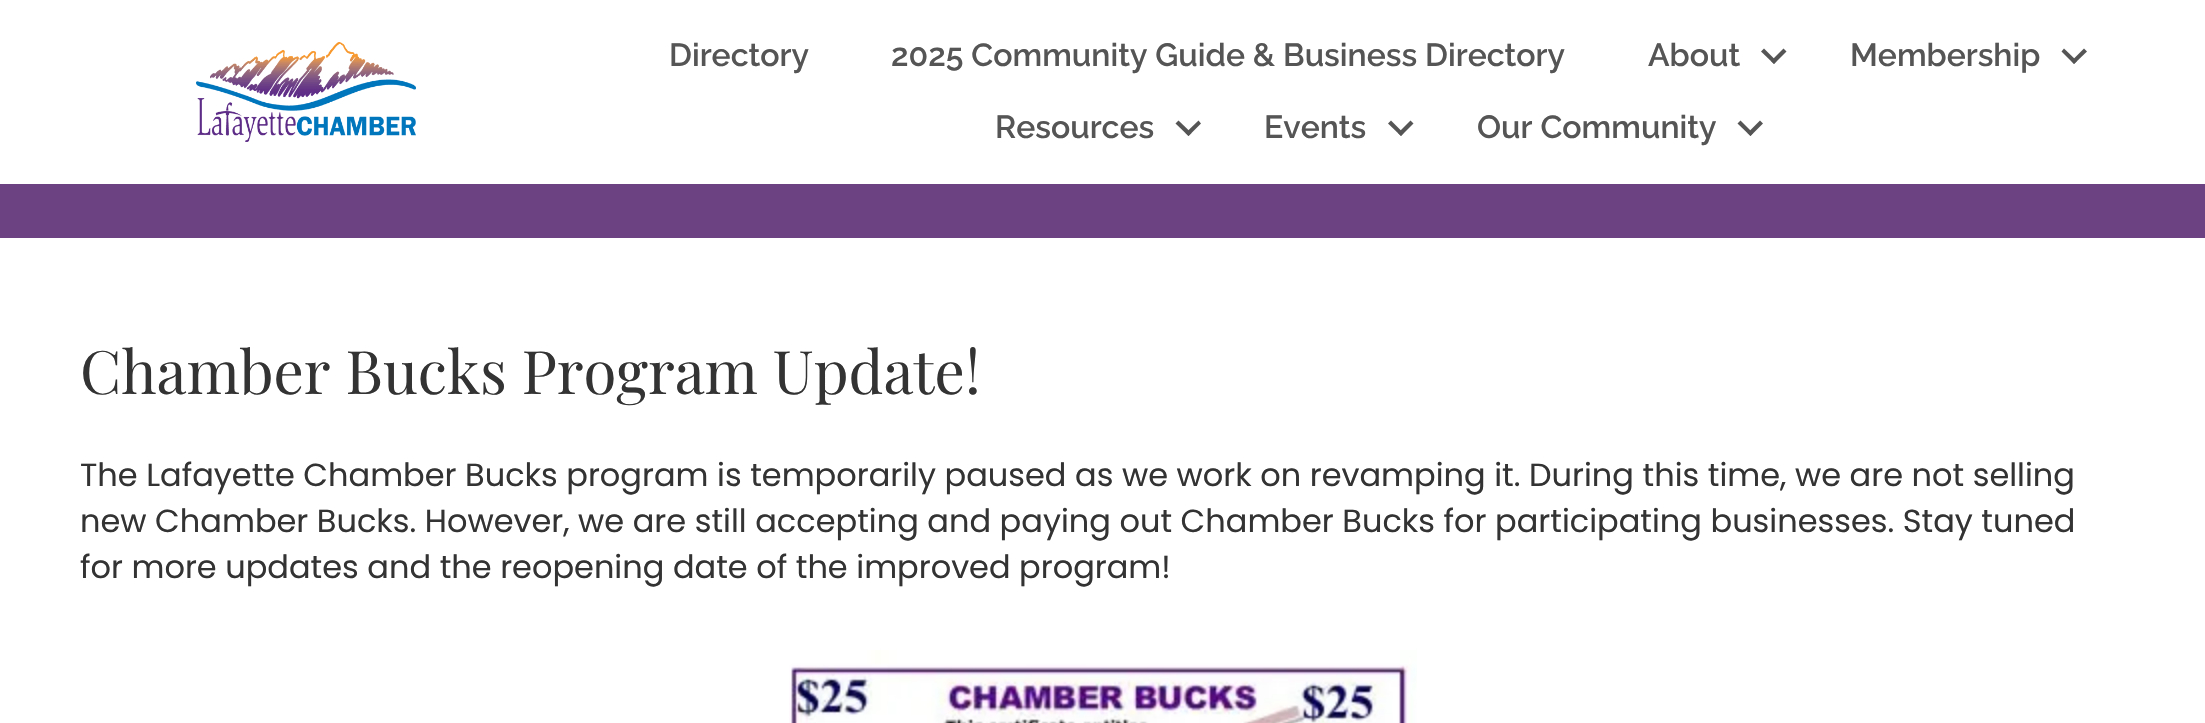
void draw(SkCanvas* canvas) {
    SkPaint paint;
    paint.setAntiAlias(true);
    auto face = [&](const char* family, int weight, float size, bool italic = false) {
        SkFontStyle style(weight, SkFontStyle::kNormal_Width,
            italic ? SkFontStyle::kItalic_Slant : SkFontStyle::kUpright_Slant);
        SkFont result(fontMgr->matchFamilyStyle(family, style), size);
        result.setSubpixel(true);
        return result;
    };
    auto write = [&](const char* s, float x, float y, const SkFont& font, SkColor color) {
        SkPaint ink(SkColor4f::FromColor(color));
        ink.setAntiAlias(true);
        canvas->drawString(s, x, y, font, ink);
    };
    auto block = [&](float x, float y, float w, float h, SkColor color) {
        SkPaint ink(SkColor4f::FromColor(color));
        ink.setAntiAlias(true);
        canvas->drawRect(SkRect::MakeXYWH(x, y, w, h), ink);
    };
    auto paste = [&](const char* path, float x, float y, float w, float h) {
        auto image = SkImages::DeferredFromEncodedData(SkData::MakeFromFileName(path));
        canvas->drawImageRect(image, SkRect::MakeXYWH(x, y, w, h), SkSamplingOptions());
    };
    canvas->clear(SK_ColorWHITE);
    paste("pic1.png", 196, 42, 220, 100);
    auto kFont1 = face("Raleway", 100, 32);
    write("Directory", 669, 66, kFont1, SkColorSetRGB(85, 85, 85));
    write("2025 Community Guide & Business Directory", 891, 66, kFont1, SkColorSetRGB(85, 85, 85));
    write("About", 1648, 66, kFont1, SkColorSetRGB(85, 85, 85));
    paint.setColor(SkColorSetRGB(85, 85, 85));
    canvas->drawPath(SkPathBuilder().moveTo(1783.5f, 48.5f).lineTo(1786.5f, 51.5f).lineTo(1774, 64).lineTo(1771, 61).close().detach(), paint);
    canvas->drawPath(SkPathBuilder().moveTo(1764, 48.5f).lineTo(1776.5f, 61).lineTo(1774, 64).lineTo(1761, 51.5f).close().detach(), paint);
    write("Membership", 1850, 66, kFont1, SkColorSetRGB(85, 85, 85));
    canvas->drawPath(SkPathBuilder().moveTo(2084, 48.5f).lineTo(2087, 51.5f).lineTo(2074, 64).lineTo(2071.5f, 61).close().detach(), paint);
    canvas->drawPath(SkPathBuilder().moveTo(2064, 48.5f).lineTo(2077, 61).lineTo(2074, 64).lineTo(2061.5f, 51.5f).close().detach(), paint);
    write("Resources", 995, 138, kFont1, SkColorSetRGB(85, 85, 85));
    canvas->drawPath(SkPathBuilder().moveTo(1198.5f, 120.5f).lineTo(1201, 123.5f).lineTo(1188.5f, 136).lineTo(1185.5f, 133).close().detach(), paint);
    canvas->drawPath(SkPathBuilder().moveTo(1178.5f, 120.5f).lineTo(1191.5f, 133).lineTo(1188.5f, 136).lineTo(1175.5f, 123.5f).close().detach(), paint);
    write("Events", 1264, 138, kFont1, SkColorSetRGB(85, 85, 85));
    canvas->drawPath(SkPathBuilder().moveTo(1410.5f, 120.5f).lineTo(1413.5f, 123.5f).lineTo(1401, 136).lineTo(1398, 133).close().detach(), paint);
    canvas->drawPath(SkPathBuilder().moveTo(1391, 120.5f).lineTo(1403.5f, 133).lineTo(1401, 136).lineTo(1388, 123.5f).close().detach(), paint);
    write("Our Community", 1477, 138, kFont1, SkColorSetRGB(85, 85, 85));
    canvas->drawPath(SkPathBuilder().moveTo(1760, 120.5f).lineTo(1763, 123.5f).lineTo(1750.5f, 136).lineTo(1747.5f, 133).close().detach(), paint);
    canvas->drawPath(SkPathBuilder().moveTo(1740.5f, 120.5f).lineTo(1753, 133).lineTo(1750.5f, 136).lineTo(1737.5f, 123.5f).close().detach(), paint);
    block(0, 184, 2205, 54, SkColorSetRGB(109, 66, 130));
    auto kFont2 = face("Playfair Display", 400, 60);
    write("Chamber Bucks Program Update!", 80, 394, kFont2, SkColorSetRGB(51, 51, 51));
    auto kFont3 = face("Poppins", 400, 32);
    write("The Lafayette Chamber Bucks program is temporarily paused as we work on revamping it. During this time, we are not selling", 80, 486, kFont3, SkColorSetRGB(51, 51, 51));
    write("new Chamber Bucks. However, we are still accepting and paying out Chamber Bucks for participating businesses. Stay tuned", 80, 532, kFont3, SkColorSetRGB(51, 51, 51));
    write("for more updates and the reopening date of the improved program!", 80, 578, kFont3, SkColorSetRGB(51, 51, 51));
    paste("pic2.png", 789, 650, 628, 73);
}
